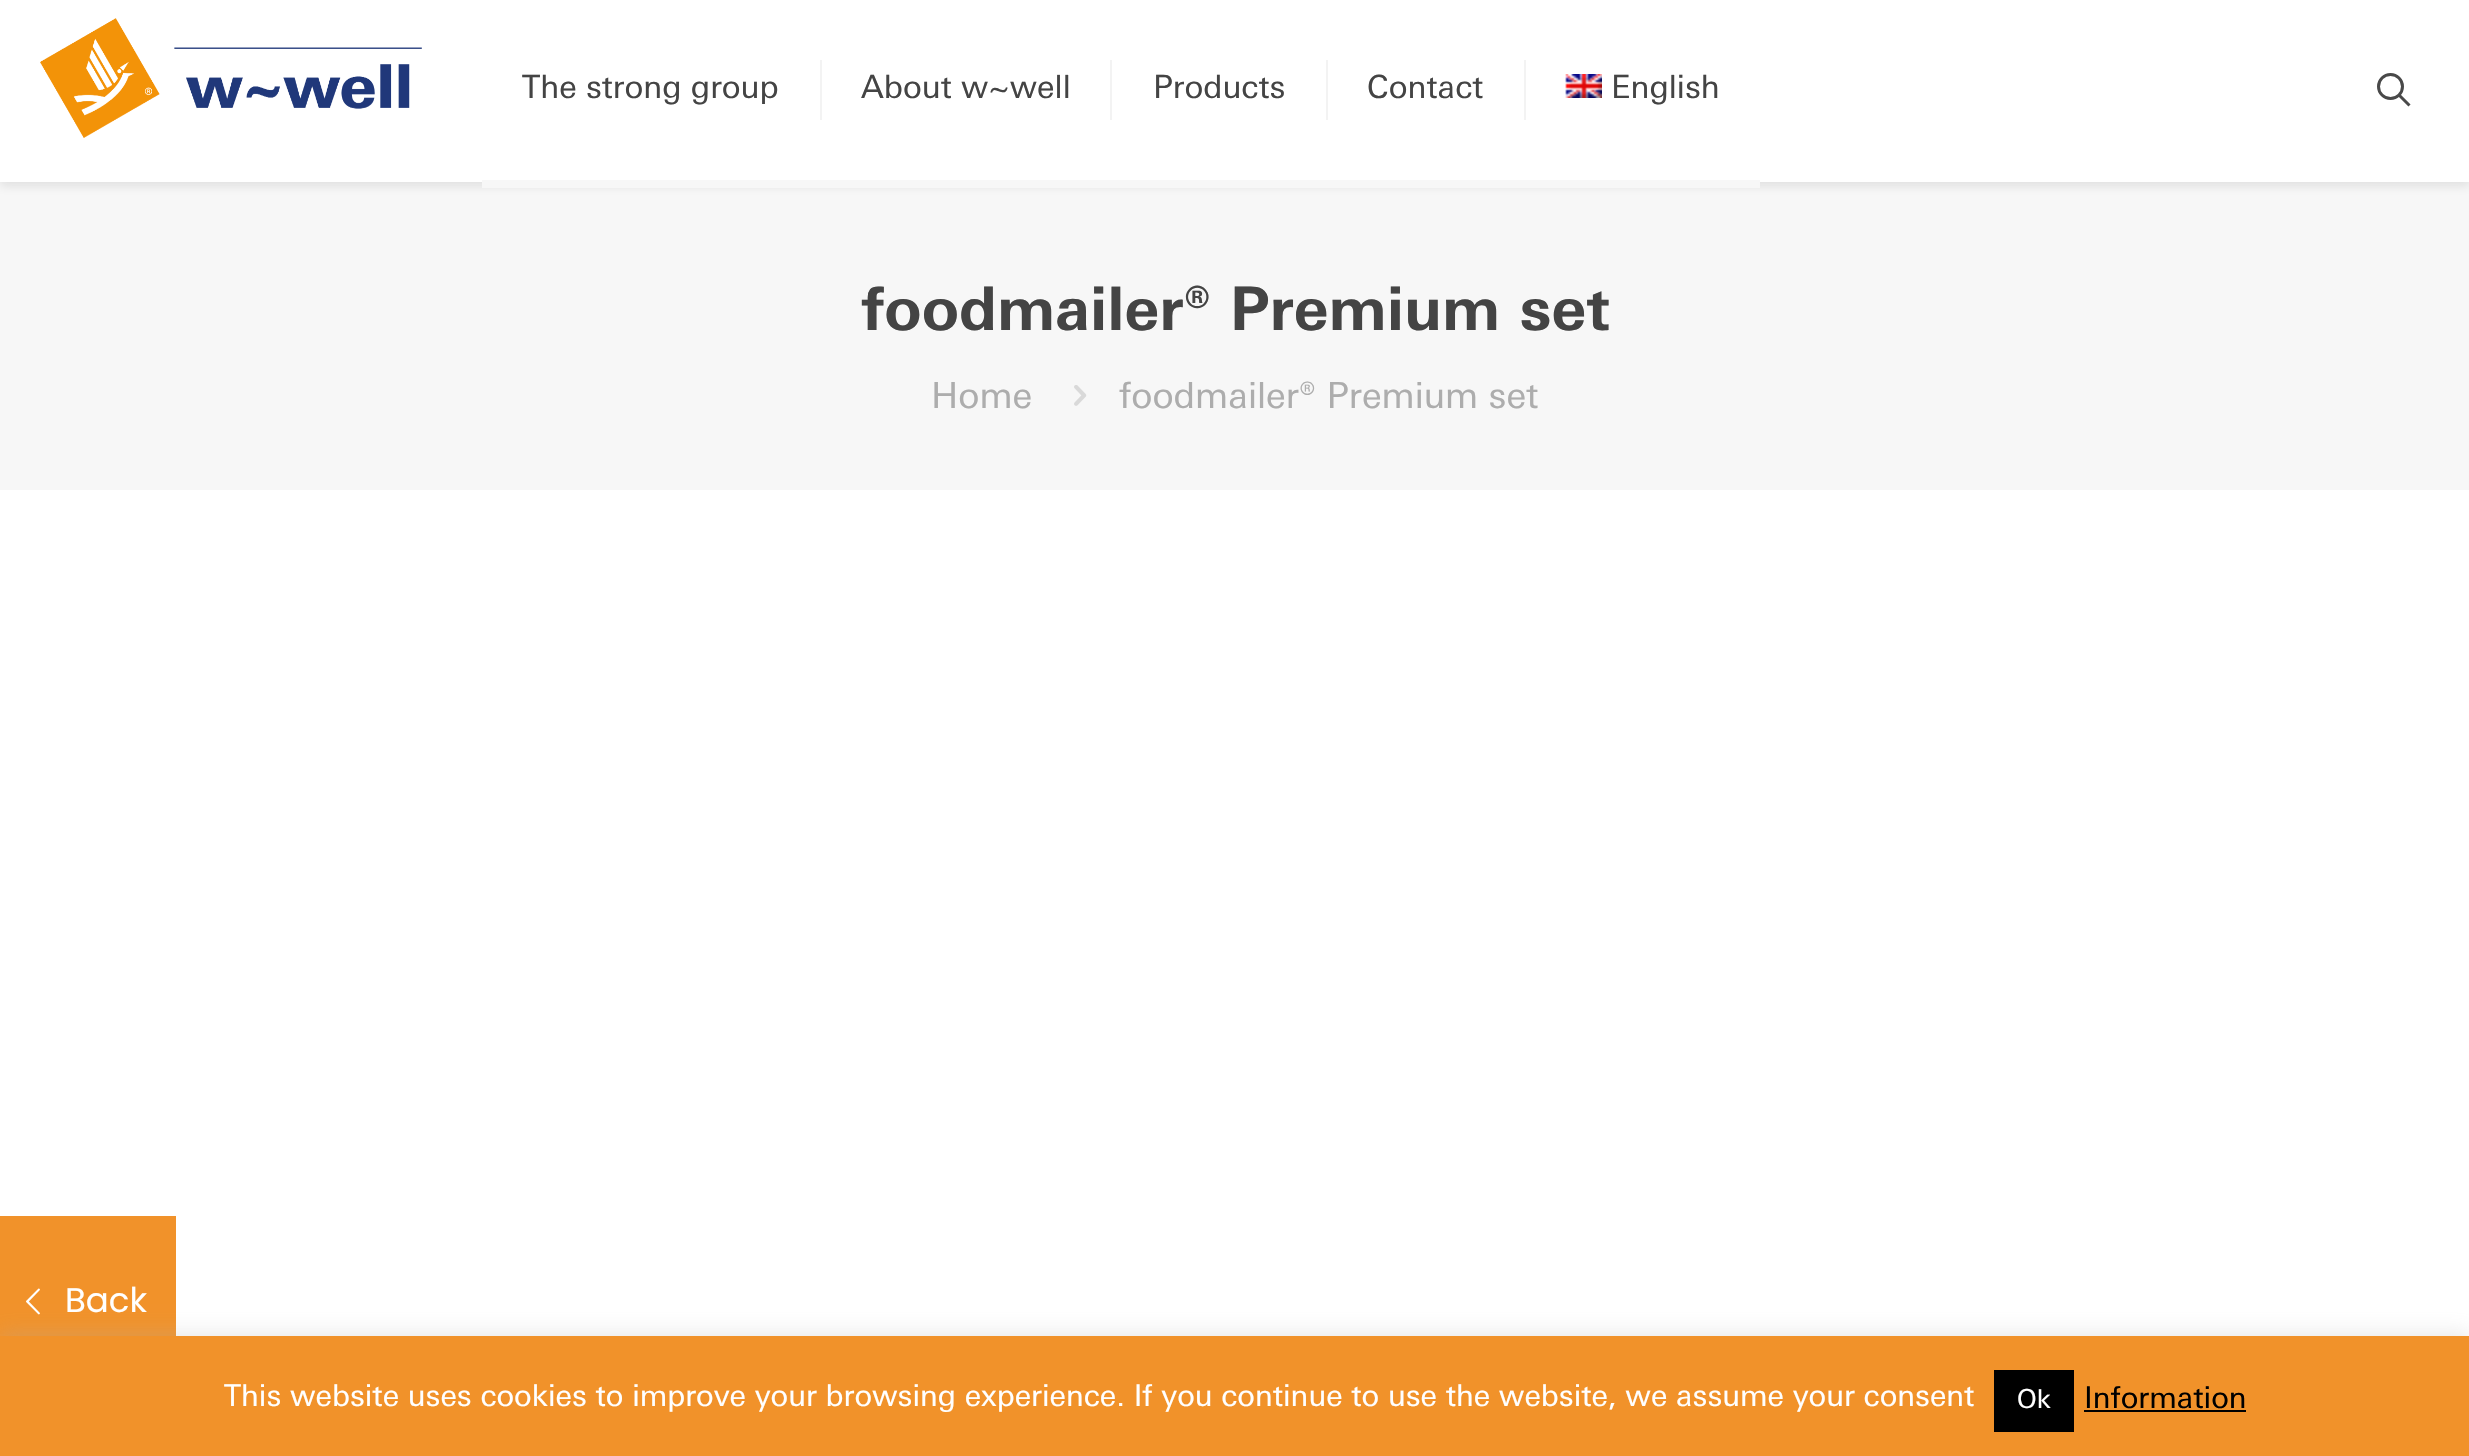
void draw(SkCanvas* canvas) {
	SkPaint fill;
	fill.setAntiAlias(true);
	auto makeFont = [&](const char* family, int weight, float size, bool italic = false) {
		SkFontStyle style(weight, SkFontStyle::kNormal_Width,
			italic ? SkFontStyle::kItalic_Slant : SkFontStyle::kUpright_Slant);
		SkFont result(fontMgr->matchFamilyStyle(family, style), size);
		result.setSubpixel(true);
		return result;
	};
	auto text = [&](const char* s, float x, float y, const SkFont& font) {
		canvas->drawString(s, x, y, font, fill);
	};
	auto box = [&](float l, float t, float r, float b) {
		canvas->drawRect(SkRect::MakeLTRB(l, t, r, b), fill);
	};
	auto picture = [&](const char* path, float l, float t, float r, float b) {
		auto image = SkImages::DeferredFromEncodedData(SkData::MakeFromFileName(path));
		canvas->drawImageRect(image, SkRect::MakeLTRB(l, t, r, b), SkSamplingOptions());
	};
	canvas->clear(0xFFFFFFFF);
	fill.setColor(0xFFF7F7F7);
	box(0, 182, 2469, 490);
	fill.setColor(0x1A070707);
	fill.setMaskFilter(SkMaskFilter::MakeBlur(kNormal_SkBlurStyle, 5));
	canvas->drawRect(SkRect::MakeLTRB(0, 4, 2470, 186), fill);
	fill.setMaskFilter(nullptr);
	fill.setColor(0xFFFFFFFF);
	box(0, 0, 2469, 182);
	picture("image0.png", 40, 18, 422, 138);
	fill.setColor(0xFFF3F3F3);
	box(820, 60, 822, 120);
	fill.setColor(0xFFF7F7F7);
	box(482, 180, 1760, 188);
	fill.setColor(0xFFF3F3F3);
	box(1110, 60, 1112, 120);
	box(1326, 60, 1328, 120);
	box(1524, 60, 1526, 120);
	picture("image1.png", 1565, 74, 1602, 98);
	fill.setStyle(SkPaint::kStroke_Style);
	fill.setStrokeWidth(3);
	fill.setColor(0xFF494949);
	canvas->drawCircle(2390.5f, 86.5f, 12, fill);
	canvas->drawPath(SkPathBuilder().moveTo(2399, 95).lineTo(2409.5f, 105.5f).detach(), fill);
	picture("image2.png", 1074, 385, 1087, 406);
	fill.setStyle(SkPaint::kFill_Style);
	fill.setColor(0xFFF1922A);
	box(0, 1216, 176, 1336);
	picture("image3.png", 26, 1288, 40, 1315);
	fill.setColor(0x4DACABAB);
	fill.setMaskFilter(SkMaskFilter::MakeBlur(kNormal_SkBlurStyle, 10));
	canvas->drawRect(SkRect::MakeLTRB(0, 1334, 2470, 1454), fill);
	fill.setMaskFilter(nullptr);
	fill.setColor(0xFFF1922A);
	box(0, 1336, 2469, 1456);
	fill.setColor(0xFF000000);
	box(1994, 1370, 2074, 1432);
	box(2084, 1410, 2246, 1412);
	auto font1 = makeFont("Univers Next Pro", 400, 32);
	fill.setColor(0xFF444444);
	text("The strong group", 522, 98, font1);
	text("About w~well", 861, 98, font1);
	text("Products", 1153, 98, font1);
	text("Contact", 1367, 98, font1);
	text("English", 1611, 98, font1);
	auto font2 = makeFont("Univers Next Pro", 700, 60);
	text("foodmailer® Premium set", 861, 330, font2);
	auto font3 = makeFont("Univers Next Pro", 400, 36);
	fill.setColor(0xFFADADAD);
	text("Home", 931, 408, font3);
	text("foodmailer® Premium set", 1119, 408, font3);
	auto font4 = makeFont("Poppins", 400, 34);
	fill.setColor(0xFFFFFFFF);
	text("Back", 65, 1312, font4);
	auto font5 = makeFont("Univers Next Pro", 400, 30);
	text("This website uses cookies to improve your browsing experience. If you continue to use the website, we assume your consent", 224, 1406, font5);
	auto font6 = makeFont("Univers Next Pro", 400, 26);
	text("Ok", 2017, 1408, font6);
	fill.setColor(0xFF000000);
	text("Information", 2084, 1408, font5);
}
